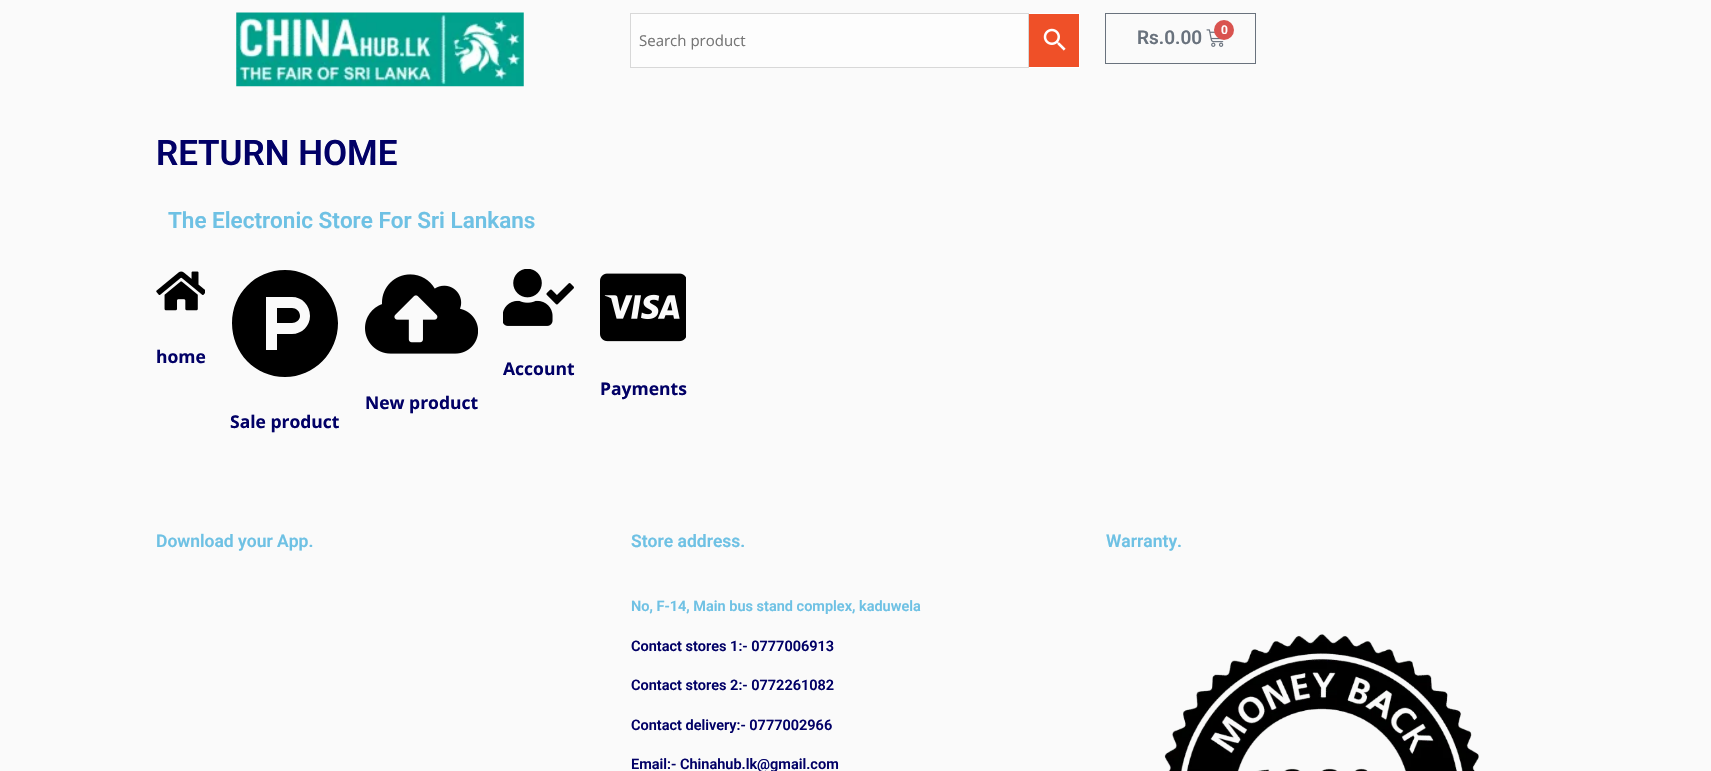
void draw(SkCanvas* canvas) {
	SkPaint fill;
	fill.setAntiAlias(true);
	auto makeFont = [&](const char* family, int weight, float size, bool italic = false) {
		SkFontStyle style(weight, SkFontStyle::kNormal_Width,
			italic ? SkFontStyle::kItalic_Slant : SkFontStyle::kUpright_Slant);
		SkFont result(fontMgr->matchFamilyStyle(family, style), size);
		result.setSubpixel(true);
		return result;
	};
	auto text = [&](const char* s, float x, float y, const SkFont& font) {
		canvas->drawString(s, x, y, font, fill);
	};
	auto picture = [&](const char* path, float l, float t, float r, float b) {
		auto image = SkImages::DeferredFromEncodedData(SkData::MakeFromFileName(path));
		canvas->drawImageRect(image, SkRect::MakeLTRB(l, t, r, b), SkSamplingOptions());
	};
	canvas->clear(0xFFFAFAFA);
	picture("image0.png", 236, 12, 524, 87);
	fill.setColor(0xFFEF5028);
	canvas->drawRect(SkRect::MakeLTRB(1028.5f, 13.5f, 1079.5f, 67.5f), fill);
	fill.setStyle(SkPaint::kStroke_Style);
	fill.setStrokeWidth(1);
	fill.setColor(0xFFFFFFFF);
	canvas->drawRect(SkRect::MakeLTRB(1028.5f, 13.5f, 1079.5f, 67.5f), fill);
	fill.setStyle(SkPaint::kFill_Style);
	fill.setColor(0xFFFDFDFD);
	canvas->drawRect(SkRect::MakeLTRB(630.5f, 13.5f, 1028.5f, 67.5f), fill);
	fill.setStyle(SkPaint::kStroke_Style);
	fill.setColor(0xFFD8D8D8);
	canvas->drawRect(SkRect::MakeLTRB(630.5f, 13.5f, 1028.5f, 67.5f), fill);
	picture("image1.png", 1043, 28, 1066, 51);
	fill.setColor(0xFF69727D);
	canvas->drawRect(SkRect::MakeLTRB(1105.5f, 13.5f, 1255.5f, 63.5f), fill);
	picture("image2.png", 1206, 29, 1224, 47);
	fill.setStyle(SkPaint::kFill_Style);
	fill.setColor(0xFFD9534F);
	canvas->drawCircle(1224, 30, 10, fill);
	picture("image3.png", 156, 271, 205, 311);
	picture("image4.png", 503, 269, 574, 326);
	picture("image5.png", 600, 273, 686, 342);
	picture("image6.png", 365, 274, 478, 354);
	fill.setColor(0xFF000000);
	canvas->drawPath(SkPathBuilder().moveTo(300, 316).cubicTo(300, 320, 296, 323, 292, 323).lineTo(277, 323).lineTo(277, 308).lineTo(292, 308).cubicTo(296, 308, 300, 311, 300, 316).close().moveTo(338, 323).cubicTo(338, 353, 314, 377, 285, 377).cubicTo(255, 377, 232, 353, 232, 323).cubicTo(232, 294, 255, 270, 285, 270).cubicTo(314, 270, 338, 294, 338, 323).close().moveTo(310, 316).cubicTo(310, 305, 302, 297, 292, 297).lineTo(266, 297).lineTo(266, 350).lineTo(277, 350).lineTo(277, 334).lineTo(292, 334).cubicTo(302, 334, 310, 326, 310, 316).close().detach(), fill);
	picture("image7.png", 1164, 634, 1479, 771);
	auto font1 = makeFont("Open Sans", 400, 15);
	fill.setColor(0xFF757575);
	text("Search product", 639, 46, font1);
	auto font2 = makeFont("Roboto", 600, 19);
	fill.setColor(0xFF69727D);
	text("Rs.0.00", 1137, 44, font2);
	auto font3 = makeFont("Roboto", 600, 12);
	fill.setColor(0xFFFFFFFF);
	text("0", 1221, 34, font3);
	auto font4 = makeFont("Roboto", 600, 35);
	fill.setColor(0xFF010066);
	text("RETURN HOME", 156, 165, font4);
	auto font5 = makeFont("Roboto", 600, 22.5f);
	fill.setColor(0xFF6EC1E4);
	text("The Electronic Store For Sri Lankans", 168, 228, font5);
	auto font6 = makeFont("Open Sans", 700, 17.5f);
	fill.setColor(0xFF010066);
	text("home", 156, 363, font6);
	text("Account", 503, 375, font6);
	text("Payments", 600, 395, font6);
	text("New product", 365, 409, font6);
	text("Sale product", 230, 428, font6);
	auto font7 = makeFont("Roboto", 600, 17.5f);
	fill.setColor(0xFF6EC1E4);
	text("Download your App.", 156, 547, font7);
	text("Store address.", 631, 547, font7);
	auto font8 = makeFont("Roboto", 600, 14.5f);
	text("No, F-14, Main bus stand complex, kaduwela", 631, 611, font8);
	fill.setColor(0xFF010066);
	text("Contact stores 1:- 0777006913", 631, 651, font8);
	text("Contact stores 2:- 0772261082", 631, 690, font8);
	text("Contact delivery:- 0777002966", 631, 730, font8);
	text("Email:- Chinahub.lk@gmail.com", 631, 769, font8);
	fill.setColor(0xFF6EC1E4);
	text("Warranty.", 1106, 547, font7);
}
